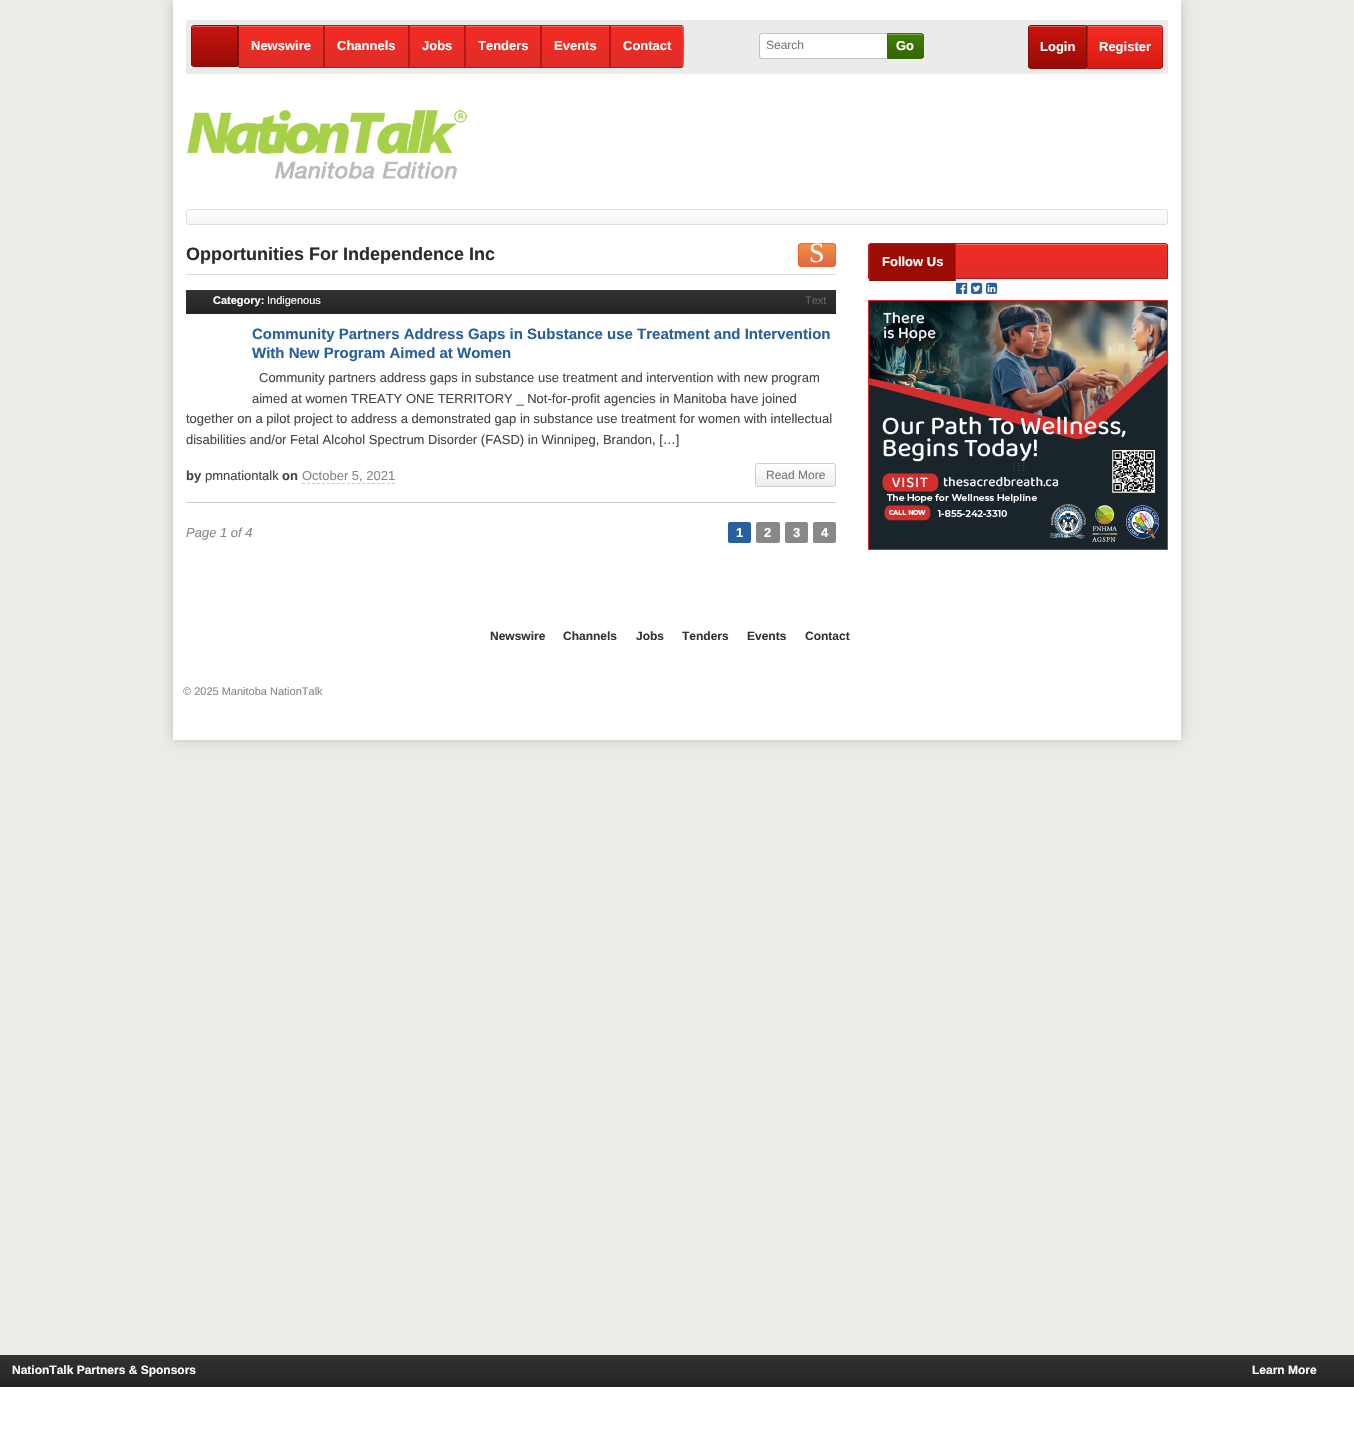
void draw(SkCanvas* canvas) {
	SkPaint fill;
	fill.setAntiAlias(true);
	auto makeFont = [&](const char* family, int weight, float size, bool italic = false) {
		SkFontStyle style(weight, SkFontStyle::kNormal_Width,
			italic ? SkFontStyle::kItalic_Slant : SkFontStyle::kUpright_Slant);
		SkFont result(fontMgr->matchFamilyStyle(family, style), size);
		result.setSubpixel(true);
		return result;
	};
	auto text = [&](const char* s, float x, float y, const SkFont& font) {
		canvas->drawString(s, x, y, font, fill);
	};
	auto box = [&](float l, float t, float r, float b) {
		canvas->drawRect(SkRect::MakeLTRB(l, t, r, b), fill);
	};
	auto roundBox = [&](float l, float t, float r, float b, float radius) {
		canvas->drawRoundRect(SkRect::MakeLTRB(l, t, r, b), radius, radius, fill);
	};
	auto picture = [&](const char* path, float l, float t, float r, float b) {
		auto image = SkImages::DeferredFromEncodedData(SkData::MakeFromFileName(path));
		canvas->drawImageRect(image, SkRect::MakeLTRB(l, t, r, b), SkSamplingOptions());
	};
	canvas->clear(0xFFEEECE7);
	fill.setColor(0x33000000);
	fill.setMaskFilter(SkMaskFilter::MakeBlur(kNormal_SkBlurStyle, 6));
	canvas->drawRect(SkRect::MakeLTRB(173, 0, 1181, 740), fill);
	fill.setMaskFilter(nullptr);
	fill.setColor(0xFFFFFFFF);
	box(173, 0, 1181, 740);
	fill.setColor(0xFFEBEBEB);
	roundBox(186, 20, 1168, 74, 3);
	canvas->save();
	canvas->clipPath(SkPathBuilder().moveTo(194, 25).lineTo(239, 25).lineTo(239, 67).lineTo(194, 67).cubicTo(192.5f, 67, 191, 65.5f, 191, 64).lineTo(191, 28).cubicTo(191, 26.5f, 192.5f, 25, 194, 25).close().detach(), true);
	{
		const SkColor colors[] = {0xFFC9140D, 0xFF960B06};
		const float stops[] = {0, 1};
		const SkPoint ends[] = {{215, 26}, {215, 66}};
		fill.setShader(SkGradientShader::MakeLinear(ends, colors, stops, 2, SkTileMode::kClamp));
		fill.setAlpha(255);
	}
	box(191, 26, 237, 66);
	canvas->restore();
	fill.setShader(nullptr);
	fill.setColor(0xFFD85B56);
	canvas->drawPath(SkPathBuilder().moveTo(194, 27).lineTo(238, 27).lineTo(238, 26).lineTo(194, 26).cubicTo(193, 26, 192, 27, 192, 28).lineTo(192, 29).cubicTo(192, 28, 193, 27, 194, 27).close().detach(), fill);
	fill.setStyle(SkPaint::kStroke_Style);
	fill.setStrokeWidth(1);
	fill.setColor(0xFF7F120D);
	canvas->drawPath(SkPathBuilder().moveTo(194, 25.5f).lineTo(238.5f, 25.5f).lineTo(238.5f, 66.5f).lineTo(194, 66.5f).cubicTo(192.5f, 66.5f, 191.5f, 65.5f, 191.5f, 64).lineTo(191.5f, 28).cubicTo(191.5f, 26.5f, 192.5f, 25.5f, 194, 25.5f).close().detach(), fill);
	fill.setStyle(SkPaint::kFill_Style);
	box(237, 26, 238, 66);
	{
		const SkColor colors[] = {0xFFF42B23, 0xFFDF2D29};
		const float stops[] = {0, 1};
		const SkPoint ends[] = {{281, 26}, {281, 67}};
		fill.setShader(SkGradientShader::MakeLinear(ends, colors, stops, 2, SkTileMode::kClamp));
		fill.setAlpha(255);
	}
	box(239, 27, 323, 67);
	fill.setShader(nullptr);
	fill.setColor(0xFFF76B65);
	box(239, 26, 323, 27);
	fill.setColor(0xFFB01A19);
	box(239, 25, 324, 26);
	box(323, 25, 324, 68);
	box(239, 67, 324, 68);
	{
		const SkColor colors[] = {0xFFF42B23, 0xFFDF2D29};
		const float stops[] = {0, 1};
		const SkPoint ends[] = {{367, 26}, {367, 67}};
		fill.setShader(SkGradientShader::MakeLinear(ends, colors, stops, 2, SkTileMode::kClamp));
		fill.setAlpha(255);
	}
	box(325, 27, 408, 67);
	fill.setShader(nullptr);
	fill.setColor(0xFFF76B65);
	box(325, 26, 408, 27);
	fill.setStyle(SkPaint::kStroke_Style);
	fill.setColor(0xFFB01A19);
	canvas->drawRect(SkRect::MakeLTRB(324.5f, 25.5f, 408.5f, 67.5f), fill);
	fill.setStyle(SkPaint::kFill_Style);
	{
		const SkColor colors[] = {0xFFF42B23, 0xFFDF2D29};
		const float stops[] = {0, 1};
		const SkPoint ends[] = {{437, 26}, {437, 67}};
		fill.setShader(SkGradientShader::MakeLinear(ends, colors, stops, 2, SkTileMode::kClamp));
		fill.setAlpha(255);
	}
	box(410, 27, 464, 67);
	fill.setShader(nullptr);
	fill.setColor(0xFFF76B65);
	box(410, 26, 464, 27);
	fill.setStyle(SkPaint::kStroke_Style);
	fill.setColor(0xFFB01A19);
	canvas->drawRect(SkRect::MakeLTRB(409.5f, 25.5f, 464.5f, 67.5f), fill);
	fill.setStyle(SkPaint::kFill_Style);
	{
		const SkColor colors[] = {0xFFF42B23, 0xFFDF2D29};
		const float stops[] = {0, 1};
		const SkPoint ends[] = {{503, 26}, {503, 67}};
		fill.setShader(SkGradientShader::MakeLinear(ends, colors, stops, 2, SkTileMode::kClamp));
		fill.setAlpha(255);
	}
	box(466, 27, 540, 67);
	fill.setShader(nullptr);
	fill.setColor(0xFFF76B65);
	box(466, 26, 540, 27);
	fill.setStyle(SkPaint::kStroke_Style);
	fill.setColor(0xFFB01A19);
	canvas->drawRect(SkRect::MakeLTRB(465.5f, 25.5f, 540.5f, 67.5f), fill);
	fill.setStyle(SkPaint::kFill_Style);
	{
		const SkColor colors[] = {0xFFF42B23, 0xFFDF2D29};
		const float stops[] = {0, 1};
		const SkPoint ends[] = {{576, 26}, {576, 67}};
		fill.setShader(SkGradientShader::MakeLinear(ends, colors, stops, 2, SkTileMode::kClamp));
		fill.setAlpha(255);
	}
	box(542, 27, 609, 67);
	fill.setShader(nullptr);
	fill.setColor(0xFFF76B65);
	box(542, 26, 609, 27);
	fill.setStyle(SkPaint::kStroke_Style);
	fill.setColor(0xFFB01A19);
	canvas->drawRect(SkRect::MakeLTRB(541.5f, 25.5f, 609.5f, 67.5f), fill);
	canvas->save();
	canvas->clipPath(SkPathBuilder().moveTo(610, 25).lineTo(681, 25).cubicTo(682.5f, 25, 684, 26.5f, 684, 28).lineTo(684, 65).cubicTo(684, 66.5f, 682.5f, 68, 681, 68).lineTo(610, 68).close().detach(), true);
	fill.setStyle(SkPaint::kFill_Style);
	{
		const SkColor colors[] = {0xFFF42B23, 0xFFDF2D29};
		const float stops[] = {0, 1};
		const SkPoint ends[] = {{647, -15}, {647, 26}};
		fill.setShader(SkGradientShader::MakeLinear(ends, colors, stops, 2, SkTileMode::kClamp));
		fill.setAlpha(255);
	}
	box(610, 25, 684, 26);
	{
		const SkColor colors[] = {0xFFF42B23, 0xFFDF2D29};
		const float stops[] = {0, 1};
		const SkPoint ends[] = {{647, 26}, {647, 67}};
		fill.setShader(SkGradientShader::MakeLinear(ends, colors, stops, 2, SkTileMode::kClamp));
		fill.setAlpha(255);
	}
	box(611, 26, 684, 67);
	{
		const SkColor colors[] = {0xFFF42B23, 0xFFDF2D29};
		const float stops[] = {0, 1};
		const SkPoint ends[] = {{647, 67}, {647, 108}};
		fill.setShader(SkGradientShader::MakeLinear(ends, colors, stops, 2, SkTileMode::kClamp));
		fill.setAlpha(255);
	}
	box(610, 67, 684, 68);
	canvas->restore();
	fill.setShader(nullptr);
	fill.setColor(0xFFF76B65);
	canvas->drawPath(SkPathBuilder().moveTo(611, 27).lineTo(681, 27).cubicTo(682, 27, 683, 28, 683, 29).lineTo(683, 28).cubicTo(683, 27, 682, 26, 681, 26).lineTo(611, 26).close().detach(), fill);
	fill.setColor(0xFFB01A19);
	canvas->drawPath(SkPathBuilder().moveTo(610, 25).lineTo(611, 26).lineTo(681, 26).lineTo(682, 27).lineTo(683, 26).lineTo(681, 25).close().detach(), fill);
	fill.setColor(0xFF86A24E);
	canvas->drawPath(SkPathBuilder().moveTo(684, 65).cubicTo(684, 60, 685, 28, 683, 26).lineTo(682, 27).cubicTo(684, 28, 684, 65, 682, 66).lineTo(683, 67).close().detach(), fill);
	fill.setColor(0xFFB01A19);
	canvas->drawPath(SkPathBuilder().moveTo(681, 68).lineTo(683, 67).lineTo(682, 66).lineTo(681, 67).lineTo(611, 67).lineTo(610, 68).close().detach(), fill);
	canvas->drawPath(SkPathBuilder().moveTo(610, 25).lineTo(610, 68).lineTo(611, 67).lineTo(611, 26).close().detach(), fill);
	fill.setColor(0xFFFFFFFF);
	canvas->drawPath(SkPathBuilder().moveTo(762, 33).lineTo(887, 33).lineTo(887, 59).lineTo(762, 59).cubicTo(760.5f, 59, 759, 57.5f, 759, 56).lineTo(759, 36).cubicTo(759, 34.5f, 760.5f, 33, 762, 33).close().detach(), fill);
	fill.setColor(0xFFC3C3C3);
	canvas->drawPath(SkPathBuilder(SkPathFillType::kEvenOdd).moveTo(762, 33).lineTo(887, 33).lineTo(887, 59).lineTo(762, 59).cubicTo(760, 59, 759, 58, 759, 56).lineTo(759, 36).cubicTo(759, 34, 760, 33, 762, 33).close().moveTo(762, 34).lineTo(887, 34).lineTo(887, 58).lineTo(762, 58).cubicTo(761, 58, 760, 57, 760, 56).lineTo(760, 36).cubicTo(760, 35, 761, 34, 762, 34).close().detach(), fill);
	canvas->save();
	canvas->clipPath(SkPathBuilder().moveTo(887, 33).lineTo(921, 33).cubicTo(922.5f, 33, 924, 34.5f, 924, 36).lineTo(924, 56).cubicTo(924, 57.5f, 922.5f, 59, 921, 59).lineTo(887, 59).close().detach(), true);
	{
		const SkColor colors[] = {0xFF3E8004, 0xFF366401};
		const float stops[] = {0, 1};
		const SkPoint ends[] = {{906, 34}, {906, 58}};
		fill.setShader(SkGradientShader::MakeLinear(ends, colors, stops, 2, SkTileMode::kClamp));
		fill.setAlpha(255);
	}
	box(888, 34, 924, 58);
	canvas->restore();
	fill.setShader(nullptr);
	fill.setColor(0xFF78A54F);
	canvas->drawPath(SkPathBuilder().moveTo(888, 35).lineTo(916, 35).cubicTo(920.5f, 35, 922.5f, 35, 923, 36.5f).lineTo(923, 36).cubicTo(923, 35, 922, 34, 921, 34).lineTo(888, 34).close().detach(), fill);
	fill.setStyle(SkPaint::kStroke_Style);
	fill.setColor(0xFF396E02);
	canvas->drawPath(SkPathBuilder().moveTo(887.5f, 33.5f).lineTo(921, 33.5f).cubicTo(922.5f, 33.5f, 923.5f, 34.5f, 923.5f, 36).lineTo(923.5f, 56).cubicTo(923.5f, 57.5f, 922.5f, 58.5f, 921, 58.5f).lineTo(887.5f, 58.5f).close().detach(), fill);
	canvas->save();
	canvas->clipPath(SkPathBuilder().moveTo(1031, 25).lineTo(1087, 25).lineTo(1087, 69).lineTo(1031, 69).cubicTo(1029.5f, 69, 1028, 67.5f, 1028, 66).lineTo(1028, 28).cubicTo(1028, 26.5f, 1029.5f, 25, 1031, 25).close().detach(), true);
	fill.setStyle(SkPaint::kFill_Style);
	{
		const SkColor colors[] = {0xFFC9140D, 0xFF960B06};
		const float stops[] = {0, 1};
		const SkPoint ends[] = {{1058, 26}, {1058, 68}};
		fill.setShader(SkGradientShader::MakeLinear(ends, colors, stops, 2, SkTileMode::kClamp));
		fill.setAlpha(255);
	}
	box(1028, 26, 1086, 68);
	canvas->restore();
	fill.setShader(nullptr);
	fill.setColor(0xFFD85B56);
	canvas->drawPath(SkPathBuilder().moveTo(1031, 27).lineTo(1086, 27).lineTo(1086, 26).lineTo(1031, 26).cubicTo(1030, 26, 1029, 27, 1029, 28).lineTo(1029, 29).cubicTo(1029, 28, 1030, 27, 1031, 27).close().detach(), fill);
	fill.setStyle(SkPaint::kStroke_Style);
	fill.setColor(0xFF7F120D);
	canvas->drawPath(SkPathBuilder().moveTo(1031, 25.5f).lineTo(1086.5f, 25.5f).lineTo(1086.5f, 68.5f).lineTo(1031, 68.5f).cubicTo(1029.5f, 68.5f, 1028.5f, 67.5f, 1028.5f, 66).lineTo(1028.5f, 28).cubicTo(1028.5f, 26.5f, 1029.5f, 25.5f, 1031, 25.5f).close().detach(), fill);
	canvas->save();
	canvas->clipPath(SkPathBuilder().moveTo(1087, 25).lineTo(1160, 25).cubicTo(1161.5f, 25, 1163, 26.5f, 1163, 28).lineTo(1163, 66).cubicTo(1163, 67.5f, 1161.5f, 69, 1160, 69).lineTo(1087, 69).close().detach(), true);
	fill.setStyle(SkPaint::kFill_Style);
	{
		const SkColor colors[] = {0xFFF32D24, 0xFFD81911};
		const float stops[] = {0, 1};
		const SkPoint ends[] = {{1125, 26}, {1125, 68}};
		fill.setShader(SkGradientShader::MakeLinear(ends, colors, stops, 2, SkTileMode::kClamp));
		fill.setAlpha(255);
	}
	box(1088, 26, 1163, 68);
	canvas->restore();
	fill.setShader(nullptr);
	fill.setColor(0xFFF76C66);
	canvas->drawPath(SkPathBuilder().moveTo(1088, 27).lineTo(1160, 27).cubicTo(1161, 27, 1162, 28, 1162, 29).lineTo(1162, 28).cubicTo(1162, 27, 1161, 26, 1160, 26).lineTo(1088, 26).close().detach(), fill);
	fill.setStyle(SkPaint::kStroke_Style);
	fill.setColor(0xFFB01A19);
	canvas->drawPath(SkPathBuilder().moveTo(1087.5f, 25.5f).lineTo(1160, 25.5f).cubicTo(1161.5f, 25.5f, 1162.5f, 26.5f, 1162.5f, 28).lineTo(1162.5f, 66).cubicTo(1162.5f, 67.5f, 1161.5f, 68.5f, 1160, 68.5f).lineTo(1087.5f, 68.5f).close().detach(), fill);
	picture("image0.png", 187, 110, 467, 179);
	canvas->save();
	canvas->clipPath(SkPathBuilder().moveTo(189, 209).lineTo(1165, 209).cubicTo(1166.5f, 209, 1168, 210.5f, 1168, 212).lineTo(1168, 222).cubicTo(1168, 223.5f, 1166.5f, 225, 1165, 225).lineTo(189, 225).cubicTo(187.5f, 225, 186, 223.5f, 186, 222).lineTo(186, 212).cubicTo(186, 210.5f, 187.5f, 209, 189, 209).close().detach(), true);
	fill.setStyle(SkPaint::kFill_Style);
	{
		const SkColor colors[] = {0xFFFFFFFF, 0xFFF5F5F5};
		const float stops[] = {0, 1};
		const SkPoint ends[] = {{677, 210}, {677, 224}};
		fill.setShader(SkGradientShader::MakeLinear(ends, colors, stops, 2, SkTileMode::kClamp));
		fill.setAlpha(255);
	}
	box(186, 210, 1168, 224);
	canvas->restore();
	fill.setStyle(SkPaint::kStroke_Style);
	fill.setShader(nullptr);
	fill.setColor(0xFFDDDDDD);
	canvas->drawRoundRect(SkRect::MakeLTRB(186.5f, 209.5f, 1167.5f, 224.5f), 2.5f, 2.5f, fill);
	fill.setStyle(SkPaint::kFill_Style);
	box(186, 274, 836, 275);
	canvas->save();
	canvas->clipPath(SkPathBuilder().moveTo(801, 243).lineTo(833, 243).cubicTo(834.5f, 243, 836, 244.5f, 836, 246).lineTo(836, 264).cubicTo(836, 265.5f, 834.5f, 267, 833, 267).lineTo(801, 267).cubicTo(799.5f, 267, 798, 265.5f, 798, 264).lineTo(798, 246).cubicTo(798, 244.5f, 799.5f, 243, 801, 243).close().detach(), true);
	{
		const SkColor colors[] = {0xFFF09042, 0xFFE36642};
		const float stops[] = {0, 1};
		const SkPoint ends[] = {{817, 244}, {817, 266}};
		fill.setShader(SkGradientShader::MakeLinear(ends, colors, stops, 2, SkTileMode::kClamp));
		fill.setAlpha(255);
	}
	box(798, 244, 836, 266);
	canvas->restore();
	fill.setStyle(SkPaint::kStroke_Style);
	fill.setShader(nullptr);
	fill.setColor(0xFFEA6635);
	canvas->drawRoundRect(SkRect::MakeLTRB(798.5f, 243.5f, 835.5f, 266.5f), 2.5f, 2.5f, fill);
	fill.setStyle(SkPaint::kFill_Style);
	fill.setColor(0xFFCCCCCC);
	box(186, 502, 836, 503);
	{
		const SkColor colors[] = {0xFF323232, 0xFF242424};
		const float stops[] = {0, 1};
		const SkPoint ends[] = {{511, 290}, {511, 314}};
		fill.setShader(SkGradientShader::MakeLinear(ends, colors, stops, 2, SkTileMode::kClamp));
		fill.setAlpha(255);
	}
	box(186, 290, 836, 314);
	fill.setStyle(SkPaint::kStroke_Style);
	fill.setShader(nullptr);
	fill.setColor(0xFFCCCCCC);
	fill.setPathEffect(SkDashPathEffect::Make({{3, 2}}, 0));
	canvas->drawPath(SkPathBuilder().moveTo(302, 483.5f).lineTo(395, 483.5f).detach(), fill);
	fill.setPathEffect(nullptr);
	canvas->save();
	canvas->clipPath(SkPathBuilder().moveTo(758, 463).lineTo(833, 463).cubicTo(834.5f, 463, 836, 464.5f, 836, 466).lineTo(836, 484).cubicTo(836, 485.5f, 834.5f, 487, 833, 487).lineTo(758, 487).cubicTo(756.5f, 487, 755, 485.5f, 755, 484).lineTo(755, 466).cubicTo(755, 464.5f, 756.5f, 463, 758, 463).close().detach(), true);
	fill.setStyle(SkPaint::kFill_Style);
	{
		const SkColor colors[] = {0xFFFFFFFF, 0xFFEDEDED};
		const float stops[] = {0, 1};
		const SkPoint ends[] = {{796, 464}, {796, 486}};
		fill.setShader(SkGradientShader::MakeLinear(ends, colors, stops, 2, SkTileMode::kClamp));
		fill.setAlpha(255);
	}
	box(755, 464, 836, 486);
	canvas->restore();
	fill.setStyle(SkPaint::kStroke_Style);
	fill.setShader(nullptr);
	fill.setColor(0xFFCCCCCC);
	canvas->drawRoundRect(SkRect::MakeLTRB(755.5f, 463.5f, 835.5f, 486.5f), 2.5f, 2.5f, fill);
	fill.setStyle(SkPaint::kFill_Style);
	fill.setColor(0xFF285F9E);
	roundBox(728, 522, 751, 543, 2);
	fill.setColor(0xFF888888);
	roundBox(756, 522, 780, 543, 2);
	roundBox(785, 522, 808, 543, 2);
	roundBox(813, 522, 836, 543, 2);
	canvas->save();
	canvas->clipPath(SkPathBuilder().moveTo(871, 243).lineTo(1165, 243).cubicTo(1166.5f, 243, 1168, 244.5f, 1168, 246).lineTo(1168, 279).lineTo(868, 279).lineTo(868, 246).cubicTo(868, 244.5f, 869.5f, 243, 871, 243).close().detach(), true);
	{
		const SkColor colors[] = {0xFFF42B23, 0xFFDF2D29};
		const float stops[] = {0, 1};
		const SkPoint ends[] = {{1018, 244}, {1018, 278}};
		fill.setShader(SkGradientShader::MakeLinear(ends, colors, stops, 2, SkTileMode::kClamp));
		fill.setAlpha(255);
	}
	box(868, 244, 1168, 278);
	canvas->restore();
	fill.setShader(nullptr);
	fill.setColor(0xFFF76B65);
	canvas->drawPath(SkPathBuilder().moveTo(871, 245).lineTo(1165, 245).cubicTo(1166, 245, 1167, 246, 1167, 247).cubicTo(1167, 246, 1167, 244, 1165, 244).lineTo(870, 244).lineTo(869, 247).cubicTo(869, 246, 870, 245, 871, 245).close().detach(), fill);
	fill.setStyle(SkPaint::kStroke_Style);
	fill.setColor(0xFFB01A19);
	canvas->drawPath(SkPathBuilder().moveTo(871, 243.5f).lineTo(1165, 243.5f).cubicTo(1166.5f, 243.5f, 1167.5f, 244.5f, 1167.5f, 246).lineTo(1167.5f, 278.5f).lineTo(868.5f, 278.5f).lineTo(868.5f, 246).cubicTo(868.5f, 244.5f, 869.5f, 243.5f, 871, 243.5f).close().detach(), fill);
	fill.setStyle(SkPaint::kFill_Style);
	fill.setColor(0xFF9B0C06);
	box(870, 244, 955, 281);
	fill.setColor(0xFFB51A16);
	box(955, 244, 956, 281);
	fill.setColor(0xFFC11A14);
	box(869, 244, 870, 281);
	picture("image1.png", 956, 282, 968, 294);
	picture("image2.png", 971, 282, 983, 294);
	picture("image3.png", 986, 282, 998, 294);
	picture("image4.png", 868, 300, 1168, 550);
	{
		const SkColor colors[] = {0xFF323232, 0xFF242424};
		const float stops[] = {0, 1};
		const SkPoint ends[] = {{689, 1355}, {689, 1387}};
		fill.setShader(SkGradientShader::MakeLinear(ends, colors, stops, 2, SkTileMode::kClamp));
		fill.setAlpha(255);
	}
	box(0, 1355, 1354, 1387);
	fill.setShader(nullptr);
	fill.setColor(0x33000000);
	fill.setMaskFilter(SkMaskFilter::MakeBlur(kNormal_SkBlurStyle, 5));
	canvas->drawRect(SkRect::MakeLTRB(0, 1386, 1354, 1446), fill);
	fill.setMaskFilter(nullptr);
	fill.setColor(0xFFFFFFFF);
	box(0, 1387, 1354, 1447);
	auto font1 = makeFont("Liberation Sans", 700, 13);
	text("Newswire", 251, 50, font1);
	text("Channels", 337, 50, font1);
	text("Jobs", 422, 50, font1);
	text("Tenders", 478, 50, font1);
	text("Events", 554, 50, font1);
	text("Contact", 623, 50, font1);
	auto font2 = makeFont("Liberation Sans", 400, 12);
	fill.setColor(0xFF777777);
	text("Search", 766, 49, font2);
	fill.setColor(0xFFFFFFFF);
	text("Go", 896, 50, font1);
	text("Login", 1040, 51, font1);
	text("Register", 1099, 51, font1);
	auto font3 = makeFont("Liberation Sans", 700, 18);
	fill.setColor(0xFF2B2B2B);
	text("Opportunities For Independence Inc", 186, 260, font3);
	auto font4 = makeFont("Liberation Serif", 400, 28);
	fill.setColor(0xFFFFFFFF);
	text("S", 809, 262, font4);
	auto font5 = makeFont("Liberation Sans", 700, 11);
	text("Category:", 213, 304, font5);
	auto font6 = makeFont("Liberation Sans", 400, 11);
	text("Indigenous", 267, 304, font6);
	fill.setColor(0xFF666666);
	text("Text", 805, 304, font6);
	auto font7 = makeFont("Liberation Sans", 700, 15);
	fill.setColor(0xFF285F9E);
	text("Community Partners Address Gaps in Substance use Treatment and Intervention", 252, 339, font7);
	text("With New Program Aimed at Women", 252, 358, font7);
	auto font8 = makeFont("Liberation Sans", 400, 13);
	fill.setColor(0xFF444444);
	text("Community partners address gaps in substance use treatment and intervention with new program", 259, 382, font8);
	text("aimed at women TREATY ONE TERRITORY _ Not-for-profit agencies in Manitoba have joined", 252, 403, font8);
	text("together on a pilot project to address a demonstrated gap in substance use treatment for women with intellectual", 186, 423, font8);
	text("disabilities and/or Fetal Alcohol Spectrum Disorder (FASD) in Winnipeg, Brandon, […]", 186, 444, font8);
	text("by", 186, 480, font1);
	text("pmnationtalk", 205, 480, font8);
	text("on", 282, 480, font1);
	fill.setColor(0xFF888888);
	text("October 5, 2021", 302, 480, font8);
	fill.setColor(0xFF777777);
	text("Read More", 766, 479, font2);
	auto font9 = makeFont("Liberation Sans", 400, 13, true);
	fill.setColor(0xFF888888);
	text("Page 1 of 4", 186, 537, font9);
	fill.setColor(0xFFFFFFFF);
	text("1", 736, 537, font1);
	text("2", 764, 537, font1);
	text("3", 793, 537, font1);
	text("4", 821, 537, font1);
	text("Follow Us", 882, 266, font1);
	auto font10 = makeFont("Liberation Sans", 700, 12);
	fill.setColor(0xFF333333);
	text("Newswire", 490, 640, font10);
	text("Channels", 563, 640, font10);
	text("Jobs", 636, 640, font10);
	text("Tenders", 682, 640, font10);
	text("Events", 747, 640, font10);
	text("Contact", 805, 640, font10);
	fill.setColor(0xFF888888);
	text("© 2025 Manitoba NationTalk", 183, 695, font6);
	fill.setColor(0xFFFFFFFF);
	text("NationTalk Partners & Sponsors", 12, 1374, font10);
	text("Learn More", 1252, 1374, font10);
}
